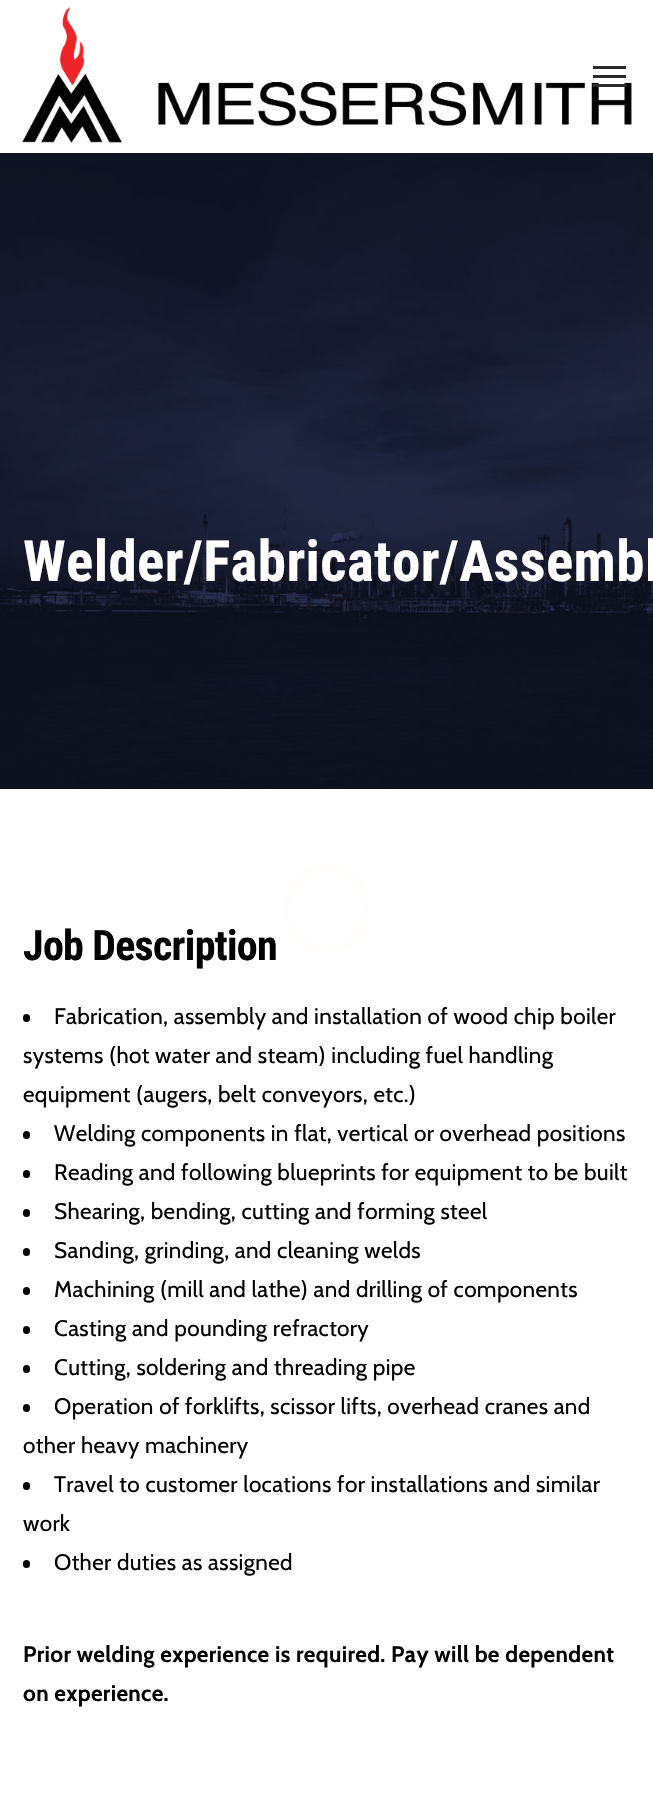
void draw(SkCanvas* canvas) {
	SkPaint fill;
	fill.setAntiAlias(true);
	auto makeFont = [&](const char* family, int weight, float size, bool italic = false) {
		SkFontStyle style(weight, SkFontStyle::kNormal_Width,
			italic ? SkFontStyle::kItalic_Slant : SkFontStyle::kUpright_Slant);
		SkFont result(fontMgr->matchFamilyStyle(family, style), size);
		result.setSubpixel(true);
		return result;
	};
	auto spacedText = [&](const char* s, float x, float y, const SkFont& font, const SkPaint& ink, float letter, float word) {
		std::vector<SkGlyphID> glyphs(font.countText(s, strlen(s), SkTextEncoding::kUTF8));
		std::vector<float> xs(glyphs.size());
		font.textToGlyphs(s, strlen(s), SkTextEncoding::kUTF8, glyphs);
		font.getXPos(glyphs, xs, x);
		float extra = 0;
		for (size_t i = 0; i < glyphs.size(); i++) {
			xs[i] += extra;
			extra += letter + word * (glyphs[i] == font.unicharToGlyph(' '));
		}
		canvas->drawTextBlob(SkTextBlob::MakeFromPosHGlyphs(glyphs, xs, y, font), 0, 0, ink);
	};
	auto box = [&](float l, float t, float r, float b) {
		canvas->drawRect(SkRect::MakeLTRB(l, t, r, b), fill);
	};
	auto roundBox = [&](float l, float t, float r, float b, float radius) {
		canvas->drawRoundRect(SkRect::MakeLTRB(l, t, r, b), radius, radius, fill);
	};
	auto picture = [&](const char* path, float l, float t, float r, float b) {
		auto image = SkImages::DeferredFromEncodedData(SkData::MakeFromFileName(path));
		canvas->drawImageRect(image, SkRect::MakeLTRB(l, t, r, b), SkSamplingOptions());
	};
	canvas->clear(0xFFFFFFFF);
	picture("image0.png", 22, 7, 632, 143);
	fill.setColor(0xFF2A2A2A);
	box(593, 66, 626, 69);
	box(593, 75, 626, 78);
	box(593, 84, 626, 87);
	picture("image1.png", 0, 153, 653, 789);
	canvas->save();
	canvas->clipRect(SkRect::MakeLTRB(282, 864, 327, 954));
	fill.setColor(0xFFFFFEFC);
	canvas->drawPath(SkPathBuilder(SkPathFillType::kEvenOdd).moveTo(335, 865).lineTo(319, 953).cubicTo(295, 949, 278, 926, 283, 901).cubicTo(287, 877, 310, 860, 335, 865).close().moveTo(333, 874).lineTo(321, 944).cubicTo(301, 941, 288, 922, 292, 903).cubicTo(295, 883, 314, 870, 333, 874).close().detach(), fill);
	canvas->restore();
	canvas->drawPath(SkPathBuilder().moveTo(320.5f, 944.5f).cubicTo(326.5f, 945.5f, 325, 954.5f, 319, 953.5f).cubicTo(313.5f, 952.5f, 315, 943.5f, 320.5f, 944.5f).close().detach(), fill);
	canvas->save();
	canvas->clipRect(SkRect::MakeLTRB(327, 864, 372, 954));
	canvas->drawPath(SkPathBuilder(SkPathFillType::kEvenOdd).moveTo(319, 865).cubicTo(344, 860, 367, 877, 371, 901).cubicTo(376, 926, 359, 949, 335, 953).close().moveTo(321, 874).cubicTo(340, 870, 359, 883, 362, 903).cubicTo(366, 922, 353, 941, 333, 944).close().detach(), fill);
	canvas->restore();
	canvas->drawPath(SkPathBuilder().moveTo(333.5f, 944.5f).cubicTo(339, 943.5f, 340.5f, 952.5f, 335, 953.5f).cubicTo(329, 954.5f, 327.5f, 945.5f, 333.5f, 944.5f).close().detach(), fill);
	fill.setColor(0xFF030303);
	roundBox(23, 1014, 30, 1022, 3.5f);
	roundBox(23, 1131, 30, 1139, 3.5f);
	roundBox(23, 1170, 30, 1178, 3.5f);
	roundBox(23, 1209, 30, 1217, 3.5f);
	roundBox(23, 1248, 30, 1256, 3.5f);
	roundBox(23, 1287, 30, 1295, 3.5f);
	roundBox(23, 1326, 30, 1334, 3.5f);
	roundBox(23, 1365, 30, 1373, 3.5f);
	roundBox(23, 1404, 30, 1412, 3.5f);
	roundBox(23, 1482, 30, 1490, 3.5f);
	roundBox(23, 1560, 30, 1568, 3.5f);
	auto font1 = makeFont("Roboto Condensed", 700, 57);
	fill.setColor(0xFFFFFFFF);
	spacedText("Welder/Fabricator/Assembl", 23, 581, font1, fill, 0.35f, 0);
	auto font2 = makeFont("Roboto Condensed", 700, 42);
	fill.setColor(0xFF030303);
	spacedText("Job Description", 23, 960, font2, fill, -0.7f, 0);
	auto font3 = makeFont("Cabin", 400, 22.5f);
	spacedText("Fabrication, assembly and installation of wood chip boiler", 54, 1024, font3, fill, 0.35f, 0);
	spacedText("systems (hot water and steam) including fuel handling", 23, 1063, font3, fill, 0.35f, 0);
	spacedText("equipment (augers, belt conveyors, etc.)", 23, 1102, font3, fill, 0.35f, 0);
	spacedText("Welding components in flat, vertical or overhead positions", 54, 1141, font3, fill, 0.35f, 0);
	spacedText("Reading and following blueprints for equipment to be built", 54, 1180, font3, fill, 0.35f, 0);
	spacedText("Shearing, bending, cutting and forming steel", 54, 1219, font3, fill, 0.35f, 0);
	spacedText("Sanding, grinding, and cleaning welds", 54, 1258, font3, fill, 0.35f, 0);
	spacedText("Machining (mill and lathe) and drilling of components", 54, 1297, font3, fill, 0.35f, 0);
	spacedText("Casting and pounding refractory", 54, 1336, font3, fill, 0.35f, 0);
	spacedText("Cutting, soldering and threading pipe", 54, 1375, font3, fill, 0.35f, 0);
	spacedText("Operation of forklifts, scissor lifts, overhead cranes and", 54, 1414, font3, fill, 0.35f, 0);
	spacedText("other heavy machinery", 23, 1453, font3, fill, 0.35f, 0);
	spacedText("Travel to customer locations for installations and similar", 54, 1492, font3, fill, 0.35f, 0);
	spacedText("work", 23, 1531, font3, fill, 0.35f, 0);
	spacedText("Other duties as assigned", 54, 1570, font3, fill, 0.35f, 0);
	auto font4 = makeFont("Cabin", 700, 22.5f);
	spacedText("Prior welding experience is required. Pay will be dependent", 23, 1662, font4, fill, 0.35f, 0);
	spacedText("on experience.", 23, 1701, font4, fill, 0.35f, 0);
}
